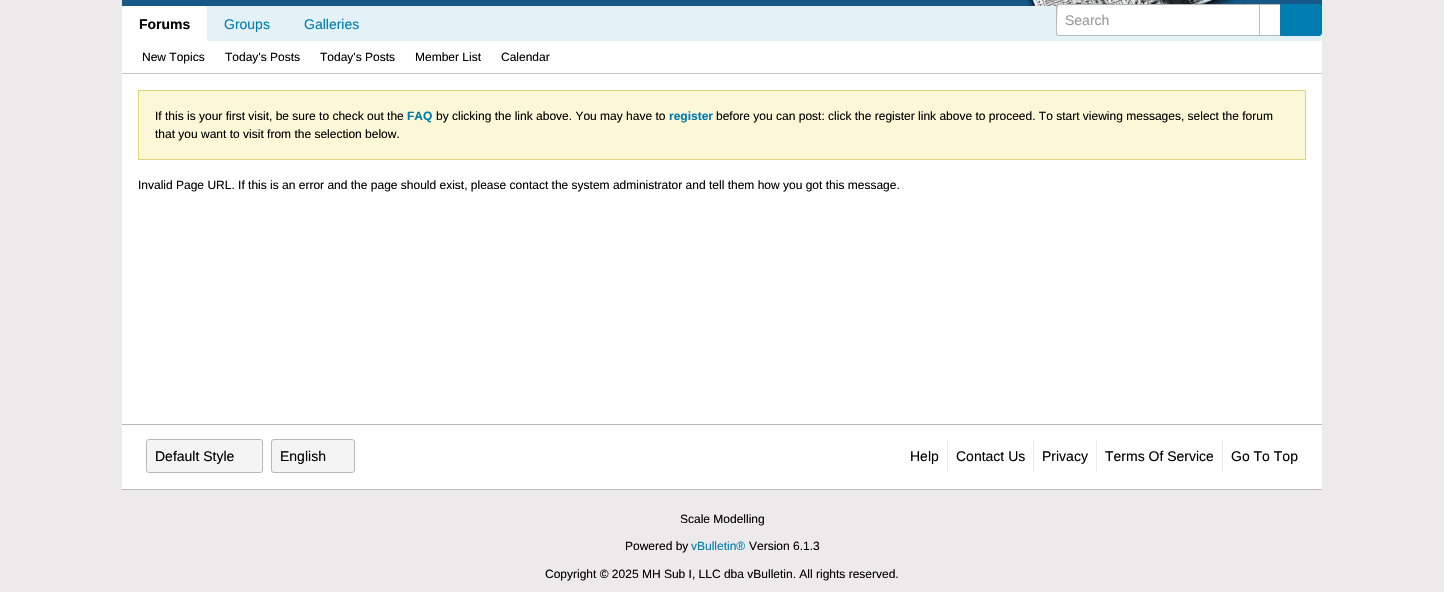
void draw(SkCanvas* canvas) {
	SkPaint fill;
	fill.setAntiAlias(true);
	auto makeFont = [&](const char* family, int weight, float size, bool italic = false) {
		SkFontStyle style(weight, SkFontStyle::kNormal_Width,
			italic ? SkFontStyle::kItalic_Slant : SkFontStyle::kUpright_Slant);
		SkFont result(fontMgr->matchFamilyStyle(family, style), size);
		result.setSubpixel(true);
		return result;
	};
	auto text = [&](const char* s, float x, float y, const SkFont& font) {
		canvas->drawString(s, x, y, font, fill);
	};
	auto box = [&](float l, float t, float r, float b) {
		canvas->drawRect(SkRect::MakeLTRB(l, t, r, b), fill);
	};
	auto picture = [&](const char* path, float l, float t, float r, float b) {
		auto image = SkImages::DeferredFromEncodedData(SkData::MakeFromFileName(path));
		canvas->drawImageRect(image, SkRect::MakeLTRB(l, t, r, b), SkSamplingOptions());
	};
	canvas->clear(0xFFECEAEA);
	fill.setColor(0xFFE4F1F6);
	canvas->drawPath(SkPathBuilder().moveTo(125, 6).lineTo(1319, 6).cubicTo(1320.5f, 6, 1322, 7.5f, 1322, 9).lineTo(1322, 41).lineTo(122, 41).lineTo(122, 9).cubicTo(122, 7.5f, 123.5f, 6, 125, 6).close().detach(), fill);
	fill.setColor(0xFFFFFFFF);
	canvas->drawPath(SkPathBuilder().moveTo(125, 6).lineTo(204, 6).cubicTo(205.5f, 6, 207, 7.5f, 207, 9).lineTo(207, 41).lineTo(122, 41).lineTo(122, 9).cubicTo(122, 7.5f, 123.5f, 6, 125, 6).close().detach(), fill);
	picture("image0.png", 122, 0, 1322, 6);
	canvas->drawPath(SkPathBuilder().moveTo(1059, 4).lineTo(1280, 4).lineTo(1280, 36).lineTo(1059, 36).cubicTo(1057.5f, 36, 1056, 34.5f, 1056, 33).lineTo(1056, 7).cubicTo(1056, 5.5f, 1057.5f, 4, 1059, 4).close().detach(), fill);
	fill.setColor(0xFFB7B7B7);
	canvas->drawPath(SkPathBuilder(SkPathFillType::kEvenOdd).moveTo(1059, 4).lineTo(1280, 4).lineTo(1280, 36).lineTo(1059, 36).cubicTo(1057, 36, 1056, 35, 1056, 33).lineTo(1056, 7).cubicTo(1056, 5, 1057, 4, 1059, 4).close().moveTo(1059, 5).lineTo(1280, 5).lineTo(1280, 35).lineTo(1058, 35).lineTo(1057, 33).cubicTo(1057, 31, 1057, 6, 1058, 6).close().detach(), fill);
	fill.setColor(0xFFBDBDBD);
	box(1259, 4, 1260, 36);
	fill.setColor(0xFF007CB0);
	canvas->drawPath(SkPathBuilder().moveTo(1280.5f, 4.5f).lineTo(1319, 4.5f).cubicTo(1320.5f, 4.5f, 1321.5f, 5.5f, 1321.5f, 7).lineTo(1321.5f, 33).cubicTo(1321.5f, 34.5f, 1320.5f, 35.5f, 1319, 35.5f).lineTo(1280.5f, 35.5f).close().detach(), fill);
	fill.setStyle(SkPaint::kStroke_Style);
	fill.setStrokeWidth(1);
	canvas->drawPath(SkPathBuilder().moveTo(1280.5f, 4.5f).lineTo(1319, 4.5f).cubicTo(1320.5f, 4.5f, 1321.5f, 5.5f, 1321.5f, 7).lineTo(1321.5f, 33).cubicTo(1321.5f, 34.5f, 1320.5f, 35.5f, 1319, 35.5f).lineTo(1280.5f, 35.5f).close().detach(), fill);
	fill.setStyle(SkPaint::kFill_Style);
	fill.setColor(0xFFFFFFFF);
	box(122, 41, 1322, 73);
	fill.setColor(0xFFC7C7C8);
	box(122, 73, 1322, 74);
	fill.setColor(0xFFFFFFFF);
	box(122, 74, 1322, 424);
	fill.setColor(0xFFFCF7D7);
	canvas->drawRect(SkRect::MakeLTRB(138.5f, 90.5f, 1305.5f, 159.5f), fill);
	fill.setStyle(SkPaint::kStroke_Style);
	fill.setColor(0xFFE1D47E);
	canvas->drawRect(SkRect::MakeLTRB(138.5f, 90.5f, 1305.5f, 159.5f), fill);
	fill.setStyle(SkPaint::kFill_Style);
	fill.setColor(0xFFFFFFFF);
	box(122, 425, 1322, 489);
	fill.setColor(0xFFB7B7B7);
	box(122, 424, 1322, 425);
	box(122, 489, 1322, 490);
	fill.setColor(0xFFF5F4F4);
	canvas->drawRoundRect(SkRect::MakeLTRB(146.5f, 439.5f, 262.5f, 472.5f), 2.5f, 2.5f, fill);
	fill.setStyle(SkPaint::kStroke_Style);
	fill.setColor(0xFFB7B7B7);
	canvas->drawRoundRect(SkRect::MakeLTRB(146.5f, 439.5f, 262.5f, 472.5f), 2.5f, 2.5f, fill);
	fill.setStyle(SkPaint::kFill_Style);
	fill.setColor(0xFFF5F4F4);
	canvas->drawRoundRect(SkRect::MakeLTRB(271.5f, 439.5f, 354.5f, 472.5f), 2.5f, 2.5f, fill);
	fill.setStyle(SkPaint::kStroke_Style);
	fill.setColor(0xFFB7B7B7);
	canvas->drawRoundRect(SkRect::MakeLTRB(271.5f, 439.5f, 354.5f, 472.5f), 2.5f, 2.5f, fill);
	fill.setStyle(SkPaint::kFill_Style);
	fill.setColor(0xFFECEAEA);
	box(947, 440, 948, 472);
	box(1033, 440, 1034, 472);
	box(1096, 440, 1097, 472);
	box(1222, 440, 1223, 472);
	auto font1 = makeFont("Liberation Sans", 700, 14);
	fill.setColor(0xFF000000);
	text("Forums", 139, 29, font1);
	auto font2 = makeFont("Liberation Sans", 400, 14);
	fill.setColor(0xFF007CB0);
	text("Groups", 224, 29, font2);
	text("Galleries", 304, 29, font2);
	fill.setColor(0xFF999999);
	text("Search", 1065, 25, font2);
	auto font3 = makeFont("Liberation Sans", 400, 12);
	fill.setColor(0xFF000000);
	text("New Topics", 142, 61, font3);
	text("Today's Posts", 225, 61, font3);
	text("Today's Posts", 320, 61, font3);
	text("Member List", 415, 61, font3);
	text("Calendar", 501, 61, font3);
	text("If this is your first visit, be sure to check out the", 155, 120, font3);
	auto font4 = makeFont("Liberation Sans", 700, 12);
	fill.setColor(0xFF007CB0);
	text("FAQ", 407, 120, font4);
	fill.setColor(0xFF000000);
	text("by clicking the link above. You may have to", 436, 120, font3);
	fill.setColor(0xFF007CB0);
	text("register", 669, 120, font4);
	fill.setColor(0xFF000000);
	text("before you can post: click the register link above to proceed. To start viewing messages, select the forum", 716, 120, font3);
	text("that you want to visit from the selection below.", 155, 138, font3);
	text("Invalid Page URL. If this is an error and the page should exist, please contact the system administrator and tell them how you got this message.", 138, 189, font3);
	text("Default Style", 155, 461, font2);
	text("English", 280, 461, font2);
	text("Help", 910, 461, font2);
	text("Contact Us", 956, 461, font2);
	text("Privacy", 1042, 461, font2);
	text("Terms Of Service", 1105, 461, font2);
	text("Go To Top", 1231, 461, font2);
	text("Scale Modelling", 680, 523, font3);
	text("Powered by", 625, 550, font3);
	fill.setColor(0xFF007CB0);
	text("vBulletin®", 691, 550, font3);
	fill.setColor(0xFF000000);
	text("Version 6.1.3", 749, 550, font3);
	text("Copyright © 2025 MH Sub I, LLC dba vBulletin. All rights reserved.", 545, 578, font3);
}
